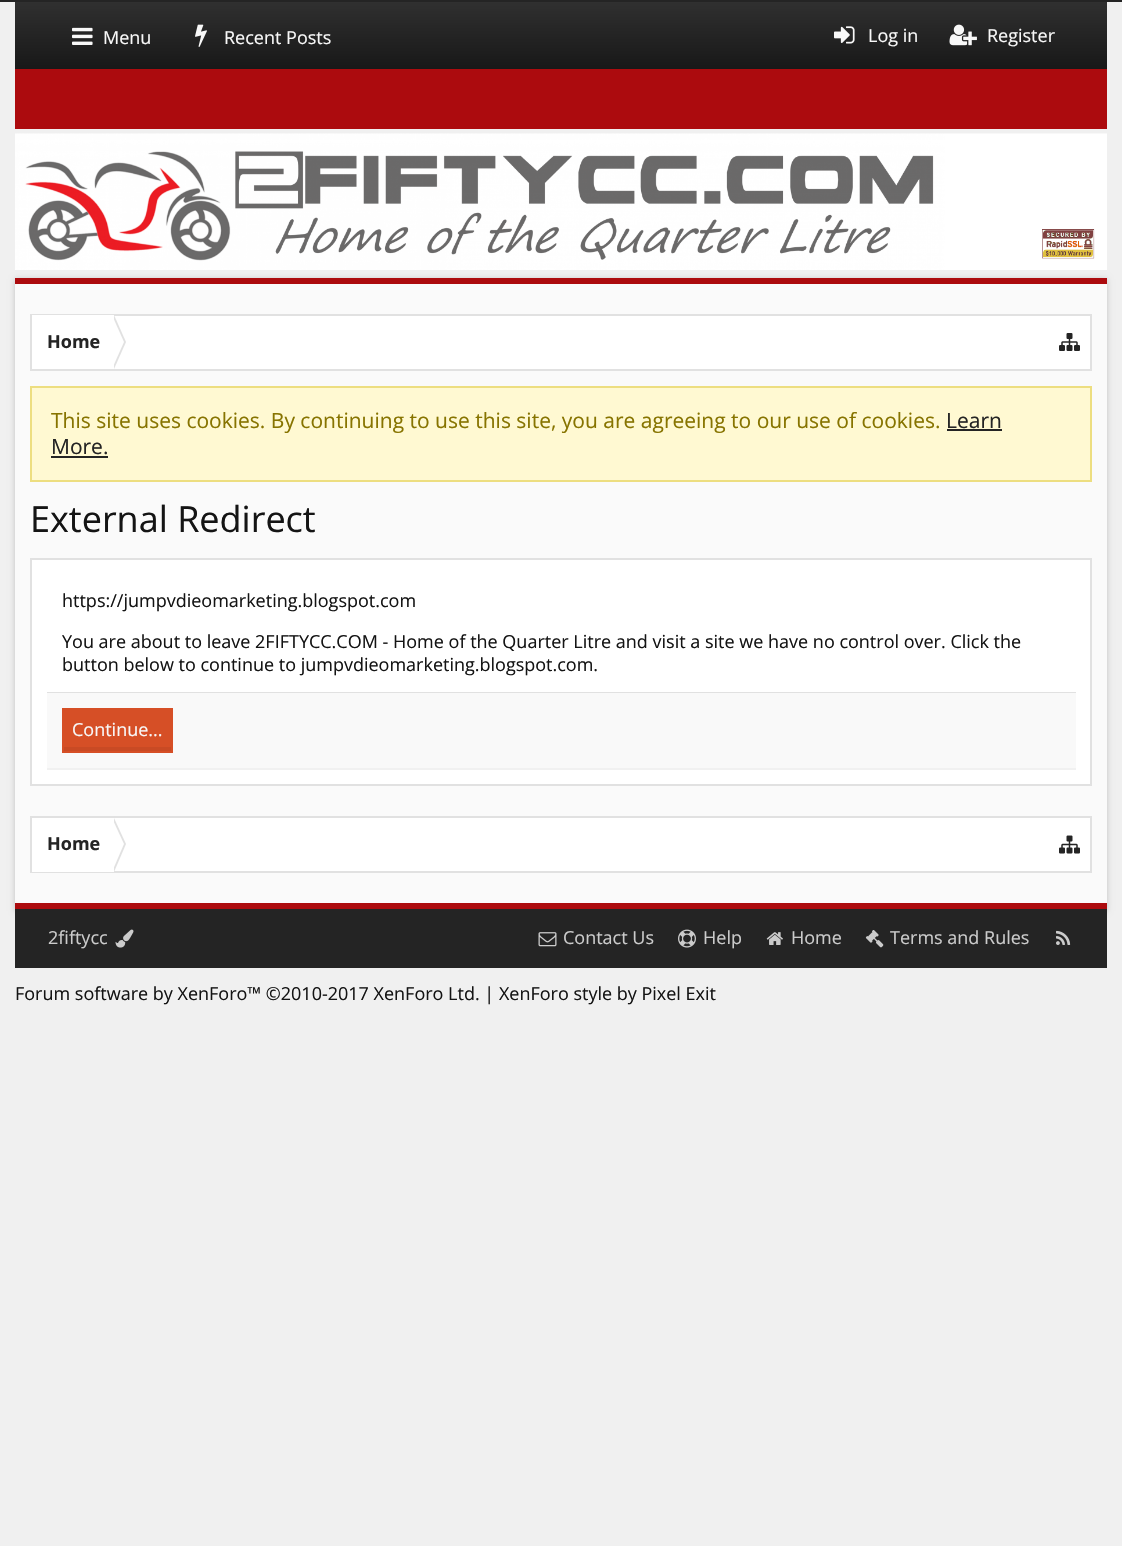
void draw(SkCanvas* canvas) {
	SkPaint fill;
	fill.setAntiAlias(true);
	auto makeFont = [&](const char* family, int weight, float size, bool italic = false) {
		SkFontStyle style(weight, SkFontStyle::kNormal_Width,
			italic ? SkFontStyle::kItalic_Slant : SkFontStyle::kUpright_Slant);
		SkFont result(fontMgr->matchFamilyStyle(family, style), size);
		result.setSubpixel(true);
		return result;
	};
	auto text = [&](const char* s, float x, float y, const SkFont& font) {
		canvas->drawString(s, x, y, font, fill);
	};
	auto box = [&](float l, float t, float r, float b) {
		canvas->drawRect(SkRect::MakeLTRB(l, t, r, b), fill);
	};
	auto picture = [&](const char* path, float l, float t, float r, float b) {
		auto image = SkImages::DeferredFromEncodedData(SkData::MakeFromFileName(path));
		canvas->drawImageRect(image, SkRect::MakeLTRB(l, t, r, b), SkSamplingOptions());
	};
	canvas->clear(0xFFF0F0F0);
	fill.setColor(0xFF242424);
	box(0, 0, 1122, 2);
	{
		const SkColor colors[] = {0xFF303030, 0xFF181818};
		const float stops[] = {0, 1};
		const SkPoint ends[] = {{561, 1.5f}, {561, 69}};
		fill.setShader(SkGradientShader::MakeLinear(ends, colors, stops, 2, SkTileMode::kClamp));
		fill.setAlpha(255);
	}
	box(15, 2, 1107, 69);
	picture("image0.png", 72, 27, 93, 45);
	picture("image1.png", 195, 24, 207, 47);
	picture("image2.png", 834, 26, 855, 44);
	picture("image3.png", 949, 24, 977, 46);
	fill.setShader(nullptr);
	fill.setColor(0xFFAC0B0E);
	box(15, 69, 1107, 129);
	picture("image4.png", 15, 133, 1107, 270);
	fill.setColor(0xFFC2C2C2);
	fill.setMaskFilter(SkMaskFilter::MakeBlur(kNormal_SkBlurStyle, 3));
	canvas->drawRect(SkRect::MakeLTRB(15, 279, 1107, 911), fill);
	fill.setMaskFilter(nullptr);
	fill.setColor(0xFFFAFAFA);
	box(15, 284, 1107, 903);
	fill.setColor(0xFFAC0B0E);
	box(15, 278, 1107, 284);
	box(15, 903, 1107, 909);
	fill.setColor(0xFFFFFFFF);
	box(114, 316, 1090, 369);
	fill.setStyle(SkPaint::kStroke_Style);
	fill.setStrokeWidth(2);
	fill.setColor(0xFFE1E1E1);
	canvas->drawRect(SkRect::MakeLTRB(31, 315, 1091, 370), fill);
	fill.setStyle(SkPaint::kFill_Style);
	fill.setColor(0xFFFFFFFF);
	box(32, 315, 114, 369);
	fill.setColor(0xFFE1E1E1);
	canvas->drawPath(SkPathBuilder().moveTo(114, 369).lineTo(114, 315).lineTo(126, 342).close().detach(), fill);
	fill.setColor(0xFFFFFFFF);
	canvas->drawPath(SkPathBuilder().moveTo(112, 369).lineTo(112, 315).lineTo(124, 342).close().detach(), fill);
	picture("image5.png", 1059, 333, 1080, 351);
	fill.setColor(0xFFFFF9D2);
	canvas->drawRect(SkRect::MakeLTRB(31, 387, 1091, 481), fill);
	fill.setStyle(SkPaint::kStroke_Style);
	fill.setColor(0xFFEDDE80);
	canvas->drawRect(SkRect::MakeLTRB(31, 387, 1091, 481), fill);
	fill.setStyle(SkPaint::kFill_Style);
	fill.setColor(0xFF242424);
	box(947, 429, 1002, 431);
	box(51, 456, 108, 458);
	fill.setColor(0xFFFFFFFF);
	canvas->drawRect(SkRect::MakeLTRB(31, 559, 1091, 785), fill);
	fill.setStyle(SkPaint::kStroke_Style);
	fill.setColor(0xFFE1E1E1);
	canvas->drawRect(SkRect::MakeLTRB(31, 559, 1091, 785), fill);
	fill.setStyle(SkPaint::kFill_Style);
	box(47, 692, 1076, 693);
	fill.setColor(0xFFF9F9F9);
	box(47, 693, 1076, 768);
	fill.setColor(0xFFF1F1F1);
	box(47, 768, 1076, 770);
	fill.setColor(0xFFD64F26);
	box(64, 710, 171, 747);
	fill.setColor(0xFFC94A24);
	box(63, 747, 171, 751);
	fill.setStyle(SkPaint::kStroke_Style);
	fill.setColor(0xFFD64F26);
	canvas->drawRect(SkRect::MakeLTRB(63, 709, 172, 752), fill);
	fill.setStyle(SkPaint::kFill_Style);
	fill.setColor(0xFFFFFFFF);
	box(114, 818, 1090, 871);
	fill.setStyle(SkPaint::kStroke_Style);
	fill.setColor(0xFFE1E1E1);
	canvas->drawRect(SkRect::MakeLTRB(31, 817, 1091, 872), fill);
	fill.setStyle(SkPaint::kFill_Style);
	fill.setColor(0xFFFFFFFF);
	box(32, 818, 114, 872);
	fill.setColor(0xFFE1E1E1);
	canvas->drawPath(SkPathBuilder().moveTo(114, 872).lineTo(114, 818).lineTo(126, 844).close().detach(), fill);
	fill.setColor(0xFFFFFFFF);
	canvas->drawPath(SkPathBuilder().moveTo(112, 872).lineTo(112, 818).lineTo(124, 844).close().detach(), fill);
	picture("image6.png", 1059, 835, 1080, 854);
	fill.setColor(0xFF242424);
	box(15, 909, 1107, 968);
	picture("image7.png", 115, 929, 134, 948);
	picture("image8.png", 538, 932, 557, 947);
	picture("image9.png", 678, 929, 696, 948);
	picture("image10.png", 766, 932, 783, 945);
	picture("image11.png", 865, 930, 884, 948);
	picture("image12.png", 1056, 930, 1071, 945);
	auto font1 = makeFont("Open Sans", 400, 18);
	fill.setColor(0xFFF8F8F8);
	text("Menu", 103, 44, font1);
	text("Recent Posts", 224, 44, font1);
	text("Log in", 868, 42, font1);
	text("Register", 987, 42, font1);
	auto font2 = makeFont("Open Sans", 700, 18);
	fill.setColor(0xFF242424);
	text("Home", 47, 348, font2);
	auto font3 = makeFont("Open Sans", 400, 21);
	fill.setColor(0xFF877400);
	text("This site uses cookies. By continuing to use this site, you are agreeing to our use of cookies.", 51, 428, font3);
	fill.setColor(0xFF242424);
	text("Learn", 946, 428, font3);
	text("More.", 51, 454, font3);
	auto font4 = makeFont("Open Sans", 400, 36);
	fill.setColor(0xFF141414);
	text("External Redirect", 30, 532, font4);
	text("https://jumpvdieomarketing.blogspot.com", 62, 607, font1);
	text("You are about to leave 2FIFTYCC.COM - Home of the Quarter Litre and visit a site we have no control over. Click the", 62, 648, font1);
	text("button below to continue to jumpvdieomarketing.blogspot.com.", 62, 671, font1);
	fill.setColor(0xFFF8F8F8);
	text("Continue...", 72, 736, font1);
	fill.setColor(0xFF242424);
	text("Home", 47, 850, font2);
	fill.setColor(0xFFCBCBCB);
	text("2fiftycc", 48, 944, font1);
	text("Contact Us", 563, 944, font1);
	text("Help", 703, 944, font1);
	text("Home", 791, 944, font1);
	text("Terms and Rules", 890, 944, font1);
	fill.setColor(0xFF141414);
	text("Forum software by XenForo™ ©2010-2017 XenForo Ltd. | XenForo style by Pixel Exit", 15, 1000, font1);
}
